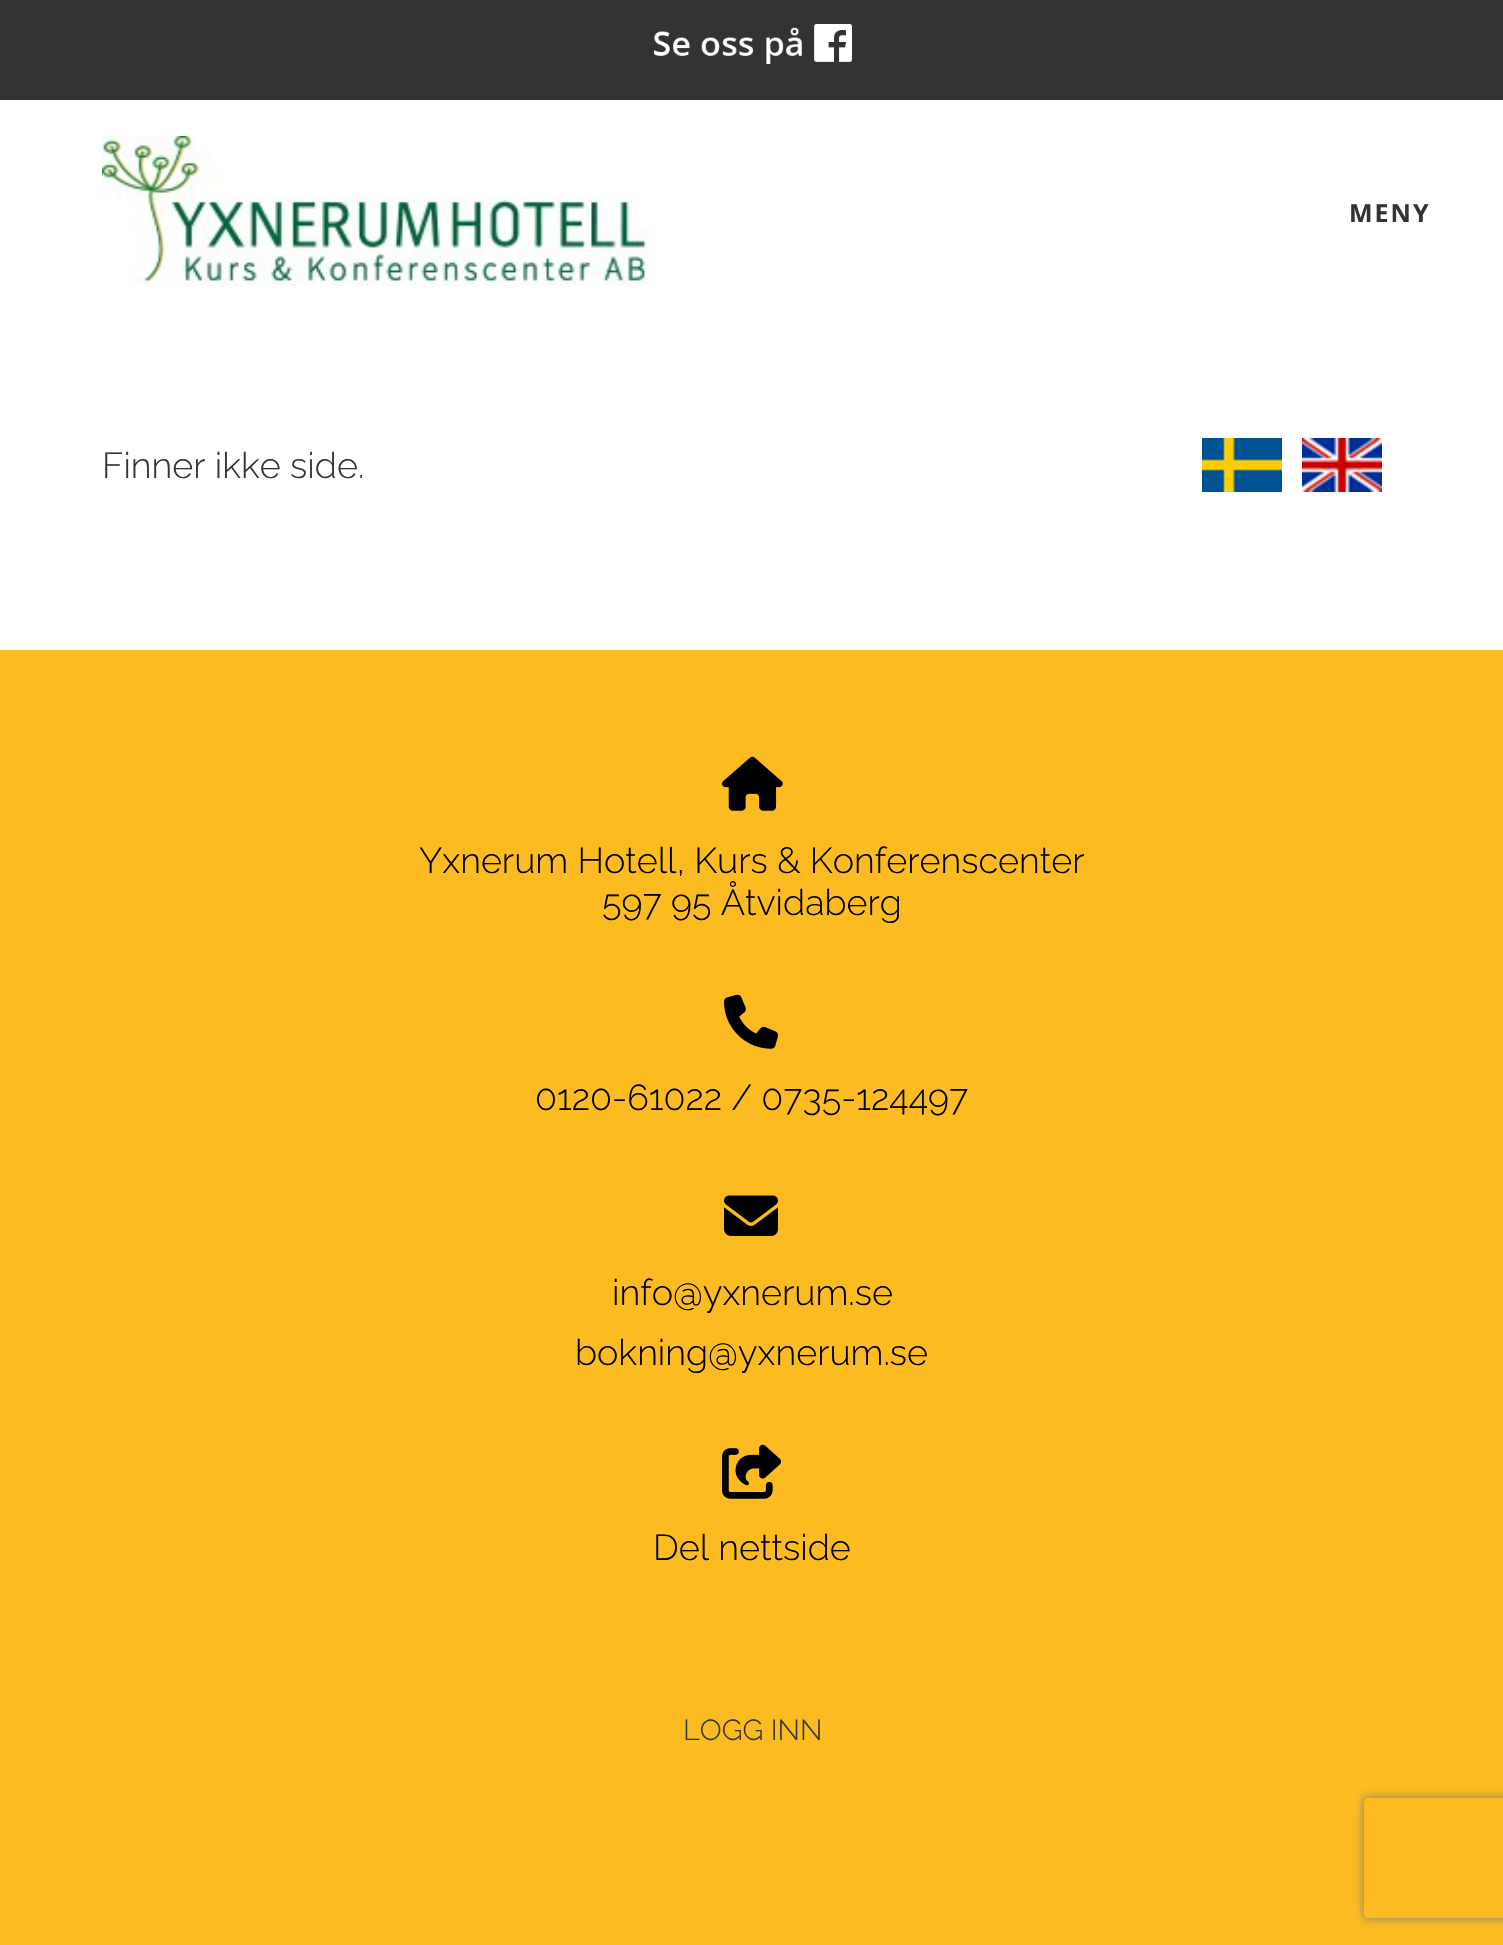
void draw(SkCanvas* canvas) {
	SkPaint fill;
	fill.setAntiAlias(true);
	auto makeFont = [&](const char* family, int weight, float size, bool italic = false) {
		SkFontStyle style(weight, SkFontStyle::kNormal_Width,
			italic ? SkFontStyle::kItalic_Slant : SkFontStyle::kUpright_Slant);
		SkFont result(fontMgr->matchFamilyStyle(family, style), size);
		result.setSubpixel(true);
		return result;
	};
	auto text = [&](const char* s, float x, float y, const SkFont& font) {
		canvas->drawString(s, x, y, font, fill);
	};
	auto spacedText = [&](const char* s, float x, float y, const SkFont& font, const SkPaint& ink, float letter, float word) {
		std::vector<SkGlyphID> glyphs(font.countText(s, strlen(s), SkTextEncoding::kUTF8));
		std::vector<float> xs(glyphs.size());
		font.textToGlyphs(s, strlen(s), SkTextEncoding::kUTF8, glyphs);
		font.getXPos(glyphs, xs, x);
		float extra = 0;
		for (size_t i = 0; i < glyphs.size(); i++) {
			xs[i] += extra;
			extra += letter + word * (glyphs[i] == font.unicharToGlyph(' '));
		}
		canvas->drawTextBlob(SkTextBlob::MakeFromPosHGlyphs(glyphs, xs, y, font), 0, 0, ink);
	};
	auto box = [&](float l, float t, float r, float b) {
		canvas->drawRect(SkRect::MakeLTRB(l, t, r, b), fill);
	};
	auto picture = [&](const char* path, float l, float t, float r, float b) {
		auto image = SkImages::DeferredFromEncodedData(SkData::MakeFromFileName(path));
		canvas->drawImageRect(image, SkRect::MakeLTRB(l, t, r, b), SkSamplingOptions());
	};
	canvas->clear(0xFFFBBB21);
	fill.setColor(0xFFFFFFFF);
	box(0, 100, 1503, 650);
	picture("image0.png", 102, 136, 650, 286);
	fill.setColor(0xFF333333);
	box(0, 0, 1503, 100);
	picture("image1.png", 654, 24, 852, 64);
	picture("image2.png", 1202, 438, 1282, 492);
	picture("image3.png", 1302, 438, 1382, 492);
	picture("image4.png", 722, 756, 783, 811);
	picture("image5.png", 724, 994, 778, 1049);
	picture("image6.png", 724, 1195, 778, 1236);
	picture("image7.png", 722, 1444, 782, 1499);
	canvas->save();
	canvas->clipPath(SkPathBuilder(SkPathFillType::kEvenOdd).moveTo(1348, 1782).lineTo(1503, 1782).lineTo(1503, 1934).lineTo(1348, 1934).close().moveTo(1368, 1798).lineTo(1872, 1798).cubicTo(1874, 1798, 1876, 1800, 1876, 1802).lineTo(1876, 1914).cubicTo(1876, 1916, 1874, 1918, 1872, 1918).lineTo(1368, 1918).cubicTo(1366, 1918, 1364, 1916, 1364, 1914).lineTo(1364, 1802).cubicTo(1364, 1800, 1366, 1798, 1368, 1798).close().detach(), true);
	fill.setColor(0xFF808080);
	fill.setMaskFilter(SkMaskFilter::MakeBlur(kNormal_SkBlurStyle, 5));
	canvas->drawRoundRect(SkRect::MakeLTRB(1364, 1798, 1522, 1918), 4, 4, fill);
	fill.setMaskFilter(nullptr);
	canvas->restore();
	auto font1 = makeFont("Open Sans", 700, 25);
	fill.setColor(0xFF333333);
	spacedText("MENY", 1349, 222, font1, fill, 2, 0);
	auto font2 = makeFont("Raleway", 300, 36);
	text("Finner ikke side.", 102, 478, font2);
	fill.setColor(0xFF000000);
	text("Yxnerum Hotell, Kurs & Konferenscenter", 419, 873, font2);
	text("597 95 Åtvidaberg", 602, 915, font2);
	text("0120-61022 / 0735-124497", 535, 1110, font2);
	text("info@yxnerum.se", 612, 1305, font2);
	text("bokning@yxnerum.se", 575, 1365, font2);
	text("Del nettside", 653, 1560, font2);
	auto font3 = makeFont("Raleway", 300, 29);
	fill.setColor(0xFF333333);
	text("LOGG INN", 683, 1740, font3);
}
